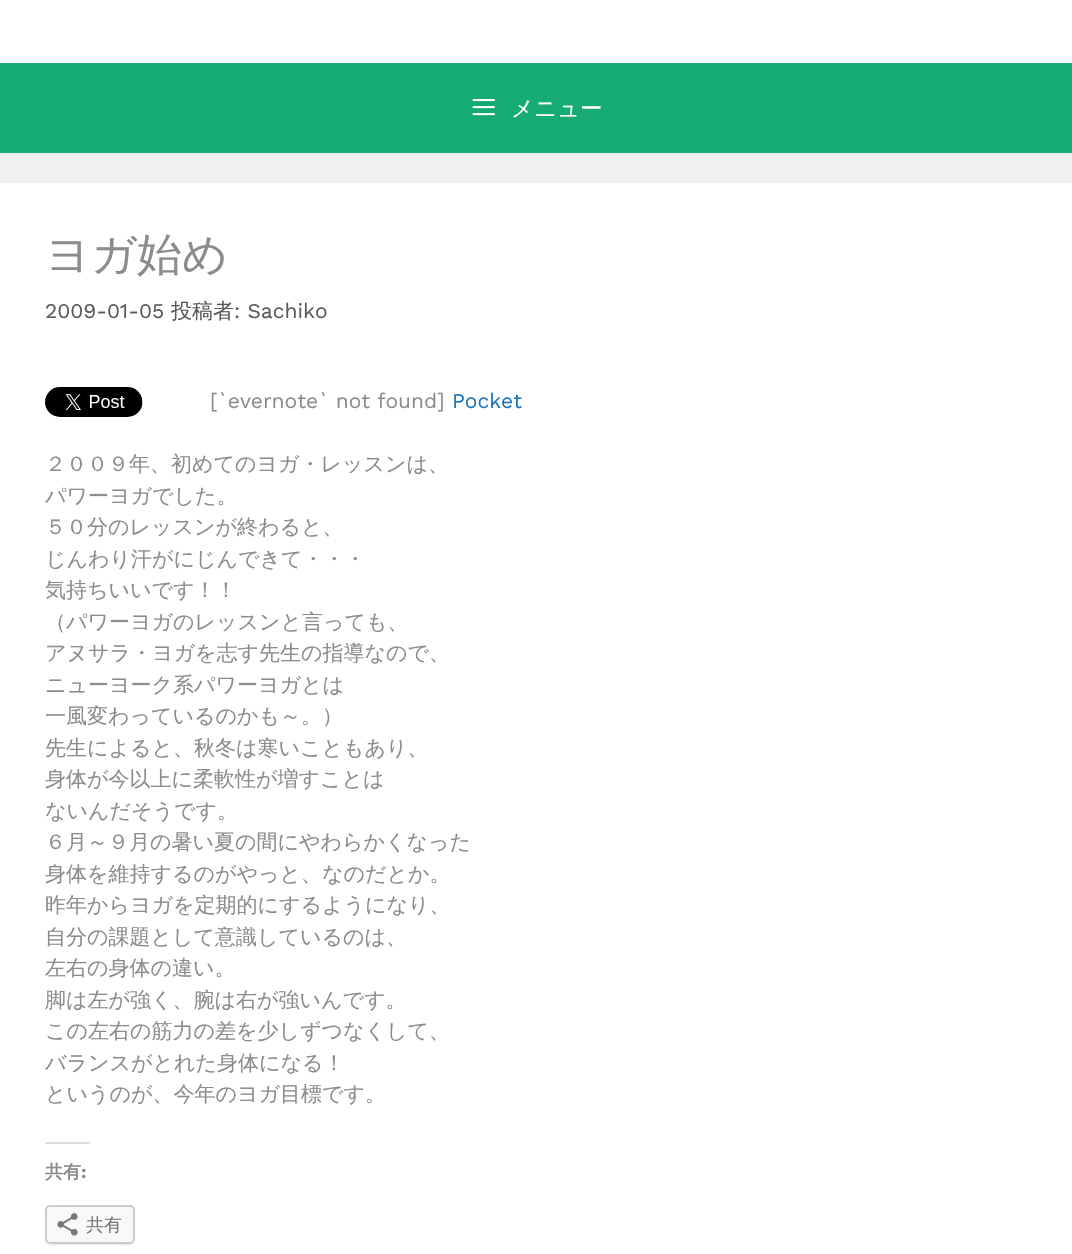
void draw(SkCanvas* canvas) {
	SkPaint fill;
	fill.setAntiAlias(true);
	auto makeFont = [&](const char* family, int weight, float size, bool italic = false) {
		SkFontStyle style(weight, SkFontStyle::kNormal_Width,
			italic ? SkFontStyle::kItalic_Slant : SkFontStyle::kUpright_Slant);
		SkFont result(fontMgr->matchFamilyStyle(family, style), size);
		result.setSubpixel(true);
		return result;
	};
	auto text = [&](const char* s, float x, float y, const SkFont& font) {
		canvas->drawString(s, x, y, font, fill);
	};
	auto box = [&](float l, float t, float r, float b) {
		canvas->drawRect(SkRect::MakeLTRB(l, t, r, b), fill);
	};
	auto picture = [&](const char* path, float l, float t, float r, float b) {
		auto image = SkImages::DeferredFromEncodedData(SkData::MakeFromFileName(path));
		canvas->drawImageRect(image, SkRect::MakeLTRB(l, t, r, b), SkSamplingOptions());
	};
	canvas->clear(0xFFEFEFEF);
	fill.setColor(0xFFFFFFFF);
	box(0, 0, 1072, 63);
	fill.setColor(0xFF16AA74);
	box(0, 63, 1072, 153);
	picture("image0.png", 472, 99, 495, 116);
	fill.setColor(0xFFFFFFFF);
	box(0, 183, 1072, 1254);
	picture("image1.png", 45, 387, 143, 417);
	fill.setColor(0xFFDDDDDD);
	box(45, 1142, 90, 1144);
	fill.setColor(0xFFEBEBEB);
	canvas->drawPath(SkPathBuilder().moveTo(45, 1239).cubicTo(45, 1248, 58, 1245, 63, 1245).lineTo(117, 1245).cubicTo(122, 1245, 135, 1248, 135, 1239).cubicTo(135, 1241, 133, 1244, 130, 1244).lineTo(50, 1244).cubicTo(47, 1244, 45, 1241, 45, 1239).close().detach(), fill);
	fill.setColor(0xFFF8F8F8);
	canvas->drawRoundRect(SkRect::MakeLTRB(46, 1206, 134, 1243), 4, 4, fill);
	fill.setStyle(SkPaint::kStroke_Style);
	fill.setStrokeWidth(2);
	fill.setColor(0xFFCCCCCC);
	canvas->drawRoundRect(SkRect::MakeLTRB(46, 1206, 134, 1243), 4, 4, fill);
	picture("image2.png", 57, 1213, 78, 1236);
	auto font1 = makeFont("WenQuanYi Zen Hei", 500, 22.5f);
	fill.setStyle(SkPaint::kFill_Style);
	fill.setColor(0xFFFFFFFF);
	text("メニュー", 511, 116, font1);
	auto font2 = makeFont("WenQuanYi Zen Hei", 500, 45);
	fill.setColor(0xFF8C8C8C);
	text("ヨガ始め", 45, 270, font2);
	auto font3 = makeFont("Work Sans", 400, 21);
	fill.setColor(0xFF595959);
	text("2009-01-05", 45, 318, font3);
	auto font4 = makeFont("WenQuanYi Zen Hei", 500, 21);
	text("投稿者", 171, 318, font4);
	text(": Sachiko", 234, 318, font3);
	fill.setColor(0xFF8C8C8C);
	text("[`evernote` not found]", 210, 408, font3);
	fill.setColor(0xFF1E73BE);
	text("Pocket", 452, 408, font3);
	fill.setColor(0xFF8C8C8C);
	text("２００９年、初めてのヨガ・レッスンは、", 45, 471, font4);
	text("パワーヨガでした。", 45, 503, font4);
	text("５０分のレッスンが終わると、", 45, 534, font4);
	text("じんわり汗がにじんできて・・・", 45, 566, font4);
	text("気持ちいいです！！", 45, 597, font4);
	text("（パワーヨガのレッスンと言っても、", 45, 629, font4);
	text("アヌサラ・ヨガを志す先生の指導なので、", 45, 660, font4);
	text("ニューヨーク系パワーヨガとは", 45, 692, font4);
	text("一風変わっているのかも～。）", 45, 723, font4);
	text("先生によると、秋冬は寒いこともあり、", 45, 755, font4);
	text("身体が今以上に柔軟性が増すことは", 45, 786, font4);
	text("ないんだそうです。", 45, 818, font4);
	text("６月～９月の暑い夏の間にやわらかくなった", 45, 849, font4);
	text("身体を維持するのがやっと、なのだとか。", 45, 881, font4);
	text("昨年からヨガを定期的にするようになり、", 45, 912, font4);
	text("自分の課題として意識しているのは、", 45, 944, font4);
	text("左右の身体の違い。", 45, 975, font4);
	text("脚は左が強く、腕は右が強いんです。", 45, 1007, font4);
	text("この左右の筋力の差を少しずつなくして、", 45, 1038, font4);
	text("バランスがとれた身体になる！", 45, 1070, font4);
	text("というのが、今年のヨガ目標です。", 45, 1101, font4);
	auto font5 = makeFont("WenQuanYi Zen Hei", 700, 18);
	text("共有", 45, 1178, font5);
	auto font6 = makeFont("Work Sans", 700, 18);
	text(":", 81, 1178, font6);
	auto font7 = makeFont("WenQuanYi Zen Hei", 500, 18);
	fill.setColor(0xFF777777);
	text("共有", 86, 1231, font7);
}
